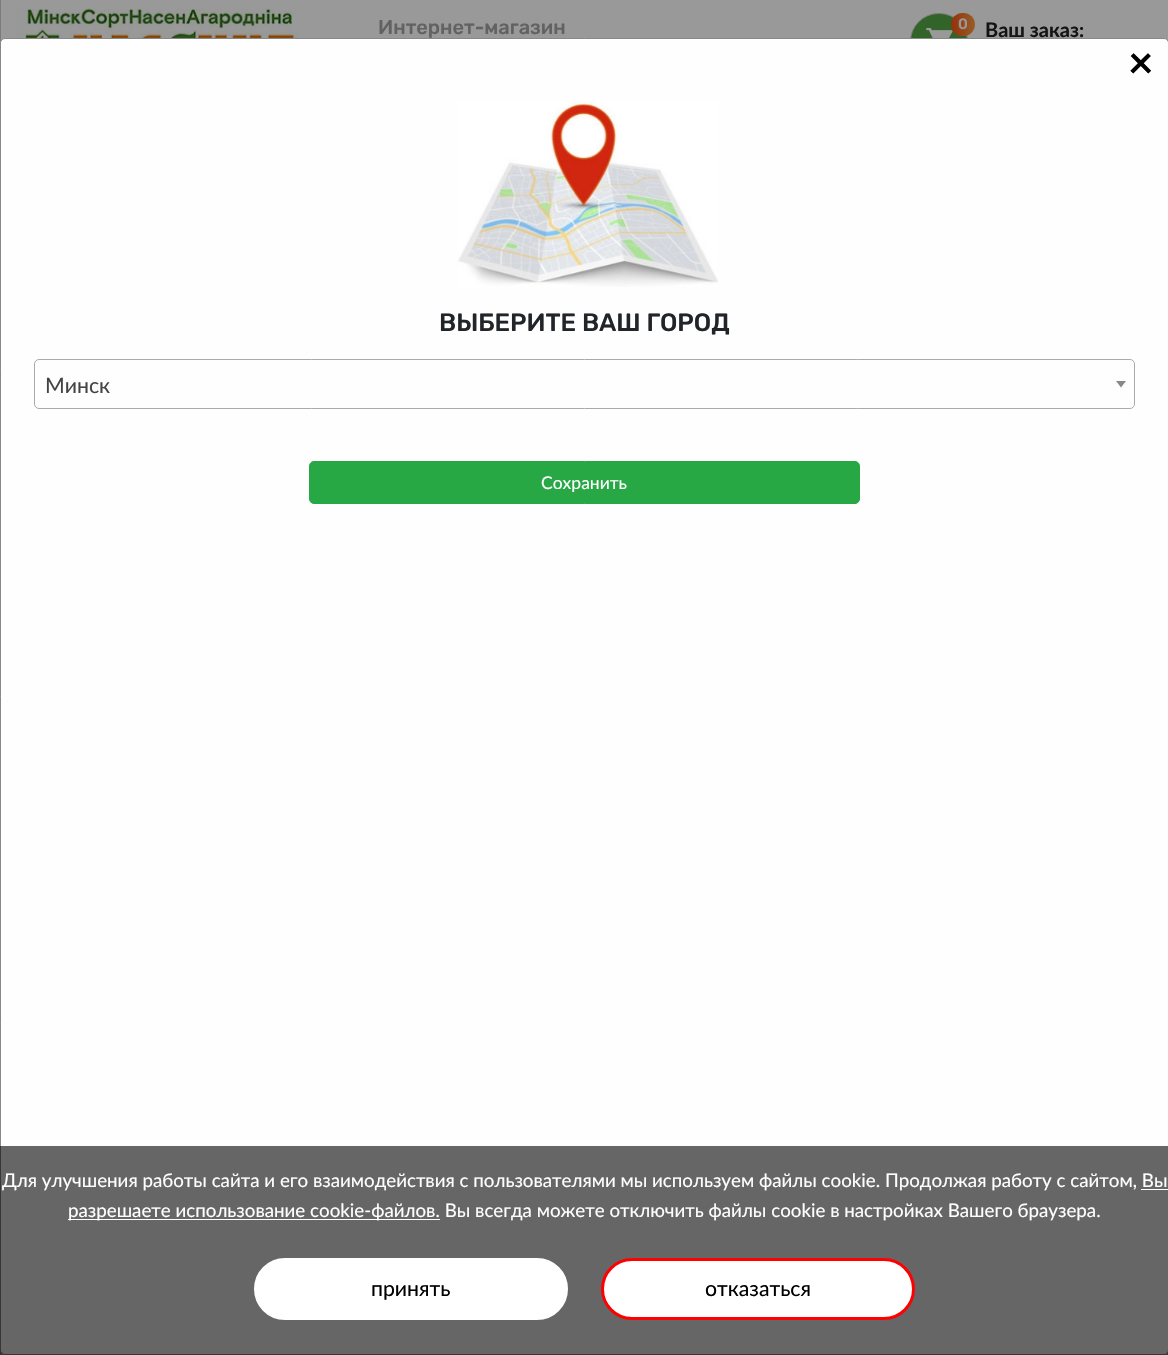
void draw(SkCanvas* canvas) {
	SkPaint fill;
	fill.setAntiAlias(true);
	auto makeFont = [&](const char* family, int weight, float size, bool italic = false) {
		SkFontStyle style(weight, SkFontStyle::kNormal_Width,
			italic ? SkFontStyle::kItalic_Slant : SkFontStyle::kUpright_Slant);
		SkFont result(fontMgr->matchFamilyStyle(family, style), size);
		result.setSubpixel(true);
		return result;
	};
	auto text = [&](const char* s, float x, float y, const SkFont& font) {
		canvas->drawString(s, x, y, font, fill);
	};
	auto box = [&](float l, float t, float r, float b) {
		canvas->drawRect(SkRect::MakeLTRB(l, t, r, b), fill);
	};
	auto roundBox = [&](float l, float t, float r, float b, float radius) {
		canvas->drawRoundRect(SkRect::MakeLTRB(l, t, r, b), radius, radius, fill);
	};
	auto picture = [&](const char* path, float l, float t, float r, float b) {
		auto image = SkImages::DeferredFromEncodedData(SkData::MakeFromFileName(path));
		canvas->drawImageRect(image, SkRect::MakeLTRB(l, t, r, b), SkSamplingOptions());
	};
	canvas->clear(0xFF999999);
	fill.setColor(0xFF7B7B7B);
	box(0, 0, 1, 1355);
	picture("image0.png", 15, 8, 299, 38);
	fill.setColor(0xFF326329);
	canvas->drawRoundRect(SkRect::MakeLTRB(910.5f, 13.5f, 967.5f, 69.5f), 28, 28, fill);
	fill.setStyle(SkPaint::kStroke_Style);
	fill.setStrokeWidth(1);
	fill.setColor(0xFF7B7B7B);
	canvas->drawRoundRect(SkRect::MakeLTRB(910.5f, 13.5f, 967.5f, 69.5f), 28, 28, fill);
	picture("image1.png", 926, 28, 953, 38);
	fill.setStyle(SkPaint::kFill_Style);
	{
		const SkColor colors[] = {0xFF95310E, 0xFF975E25};
		const float stops[] = {0, 1};
		const SkPoint ends[] = {{951, 24}, {975, 24}};
		fill.setShader(SkGradientShader::MakeLinear(ends, colors, stops, 2, SkTileMode::kClamp));
		fill.setAlpha(255);
	}
	roundBox(951, 13, 975, 36, 11.5f);
	fill.setShader(nullptr);
	fill.setColor(0xFFFEFEFE);
	canvas->drawRoundRect(SkRect::MakeLTRB(0.5f, 38.5f, 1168.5f, 1354.5f), 4.5f, 4.5f, fill);
	fill.setStyle(SkPaint::kStroke_Style);
	fill.setColor(0xFF888888);
	canvas->drawRoundRect(SkRect::MakeLTRB(0.5f, 38.5f, 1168.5f, 1354.5f), 4.5f, 4.5f, fill);
	picture("image2.png", 458, 101, 718, 287);
	fill.setColor(0xFFAAAAAA);
	canvas->drawRoundRect(SkRect::MakeLTRB(34.5f, 359.5f, 1134.5f, 408.5f), 4.5f, 4.5f, fill);
	fill.setStyle(SkPaint::kFill_Style);
	fill.setColor(0xFF888888);
	canvas->drawPath(SkPathBuilder().moveTo(1116, 381).lineTo(1126, 381).lineTo(1121, 387.5f).close().detach(), fill);
	fill.setColor(0xFF28A745);
	canvas->drawRoundRect(SkRect::MakeLTRB(309.5f, 461.5f, 859.5f, 503.5f), 4.5f, 4.5f, fill);
	fill.setStyle(SkPaint::kStroke_Style);
	canvas->drawRoundRect(SkRect::MakeLTRB(309.5f, 461.5f, 859.5f, 503.5f), 4.5f, 4.5f, fill);
	fill.setStyle(SkPaint::kFill_Style);
	fill.setColor(0x99000000);
	box(0, 1146, 1168, 1355);
	fill.setColor(0xFFFFFFFF);
	box(1141, 1189, 1168, 1190);
	box(68, 1219, 440, 1220);
	canvas->drawRoundRect(SkRect::MakeLTRB(255.5f, 1259.5f, 566.5f, 1318.5f), 29.5f, 29.5f, fill);
	fill.setStyle(SkPaint::kStroke_Style);
	fill.setStrokeWidth(3);
	canvas->drawRoundRect(SkRect::MakeLTRB(255.5f, 1259.5f, 566.5f, 1318.5f), 29.5f, 29.5f, fill);
	fill.setStyle(SkPaint::kFill_Style);
	canvas->drawRoundRect(SkRect::MakeLTRB(602.5f, 1259.5f, 913.5f, 1318.5f), 29.5f, 29.5f, fill);
	fill.setStyle(SkPaint::kStroke_Style);
	fill.setColor(0xFFFF0000);
	canvas->drawRoundRect(SkRect::MakeLTRB(602.5f, 1259.5f, 913.5f, 1318.5f), 29.5f, 29.5f, fill);
	auto font1 = makeFont("Rubik", 500, 20);
	fill.setStyle(SkPaint::kFill_Style);
	fill.setColor(0xFF626262);
	text("Интернет-магазин", 378, 34, font1);
	auto font2 = makeFont("Rubik", 500, 15);
	fill.setColor(0xFF999999);
	text("0", 958, 29, font2);
	auto font3 = makeFont("Lato", 700, 20);
	fill.setColor(0xFF141414);
	text("Ваш заказ:", 985, 37, font3);
	auto font4 = makeFont("Lato", 700, 44);
	fill.setColor(0xFF000000);
	text("×", 1128, 78, font4);
	auto font5 = makeFont("Rubik", 500, 25);
	fill.setColor(0xFF212529);
	text("ВЫБЕРИТЕ ВАШ ГОРОД", 439, 331, font5);
	auto font6 = makeFont("Lato", 400, 21.25f);
	fill.setColor(0xFF444444);
	text("Минск", 45, 393, font6);
	auto font7 = makeFont("Lato", 400, 17.5f);
	fill.setColor(0xFFFFFFFF);
	text("Сохранить", 541, 489, font7);
	auto font8 = makeFont("Lato", 400, 18.75f);
	text("Для улучшения работы сайта и его взаимодействия с пользователями мы используем файлы cookie. Продолжая работу с сайтом, Вы", 2, 1187, font8);
	text("разрешаете использование cookie-файлов. Вы всегда можете отключить файлы cookie в настройках Вашего браузера.", 68, 1217, font8);
	fill.setColor(0xFF000000);
	text("принять", 371, 1296, font6);
	text("отказаться", 705, 1296, font6);
}
